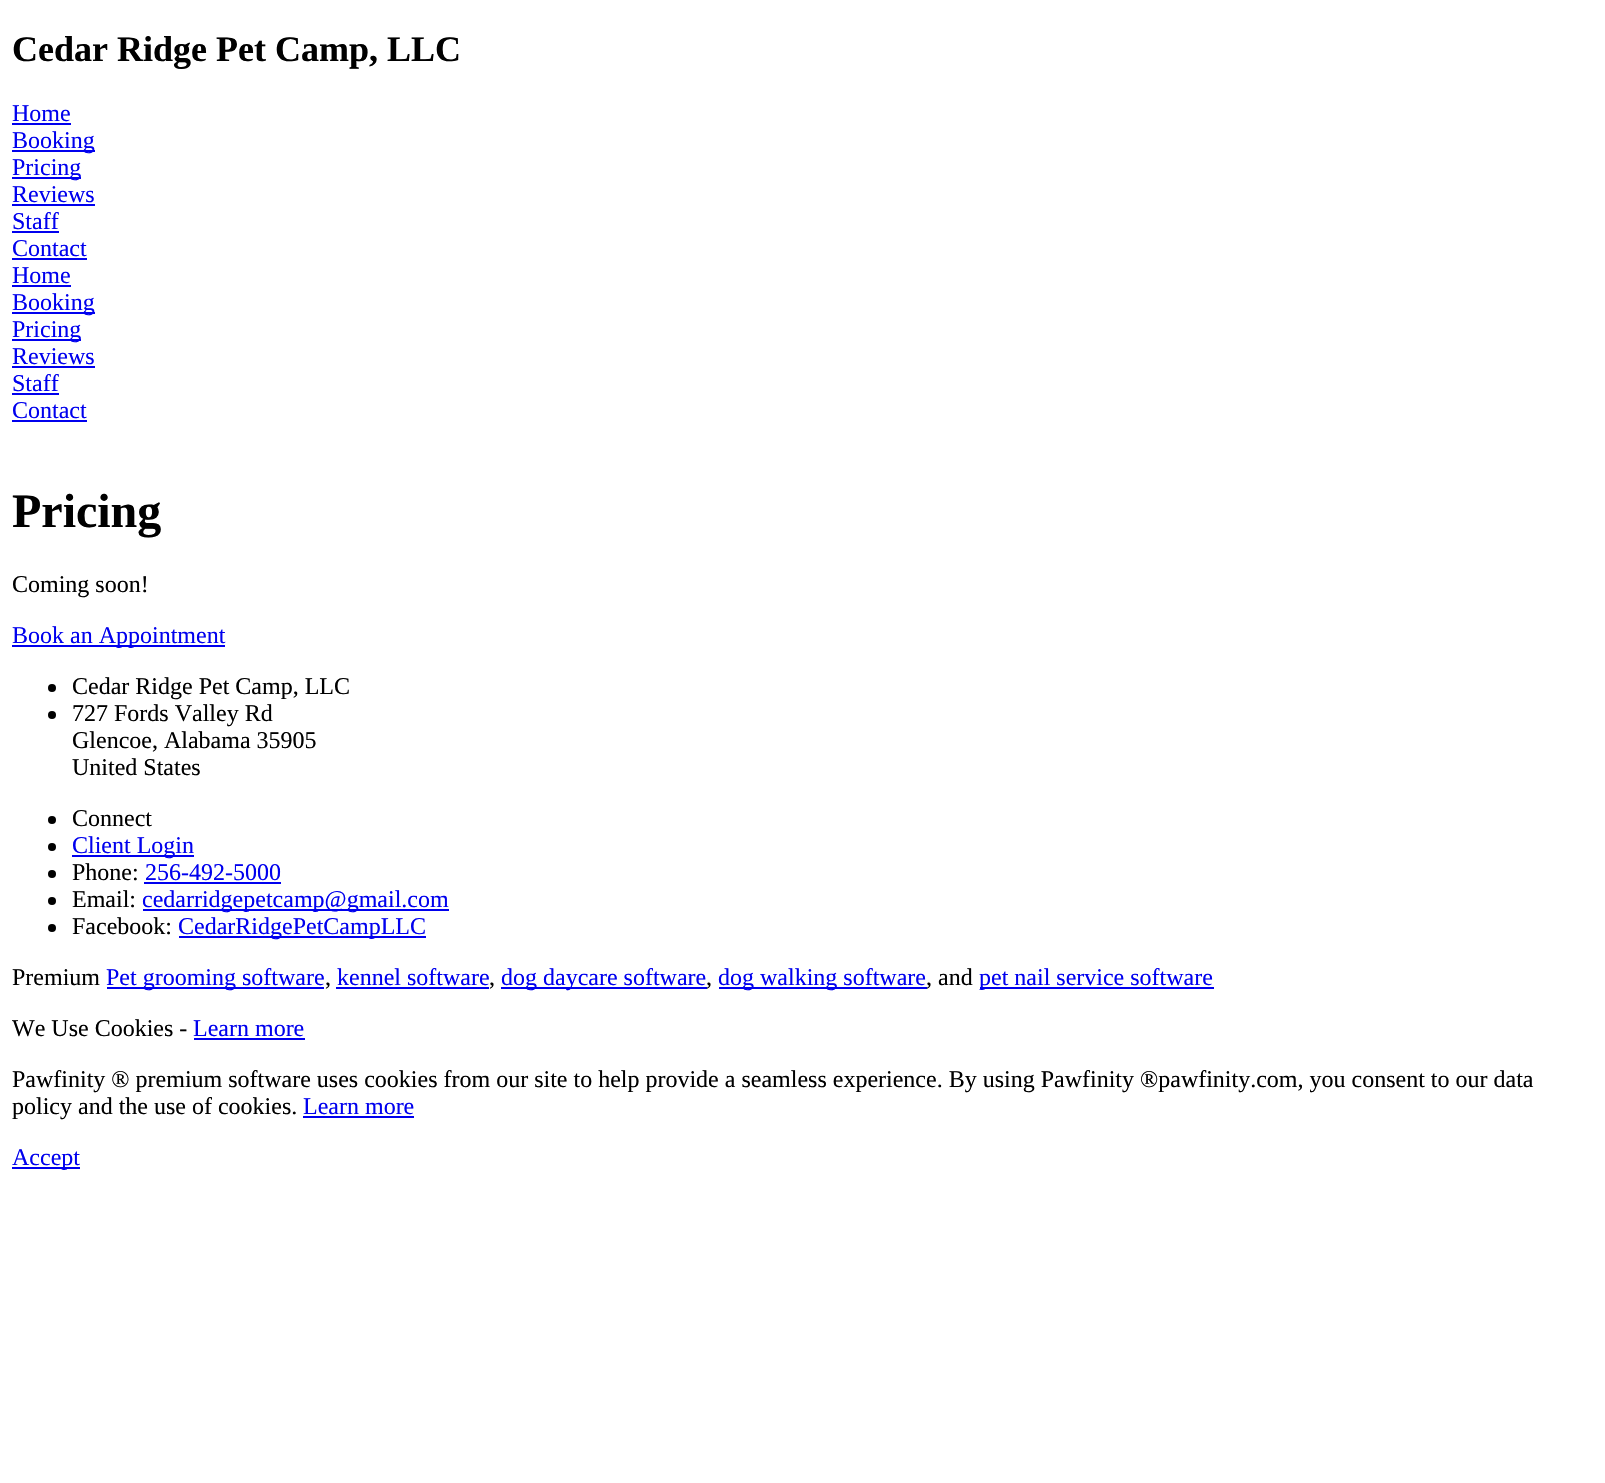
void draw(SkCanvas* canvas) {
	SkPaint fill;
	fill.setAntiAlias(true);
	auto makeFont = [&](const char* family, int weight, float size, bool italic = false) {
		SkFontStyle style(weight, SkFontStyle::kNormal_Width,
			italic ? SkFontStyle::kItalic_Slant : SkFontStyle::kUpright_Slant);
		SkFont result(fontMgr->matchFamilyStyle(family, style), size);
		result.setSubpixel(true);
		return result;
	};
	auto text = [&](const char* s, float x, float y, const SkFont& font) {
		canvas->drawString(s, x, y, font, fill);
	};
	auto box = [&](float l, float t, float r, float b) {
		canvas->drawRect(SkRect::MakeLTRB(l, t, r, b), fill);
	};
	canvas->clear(0xFFFFFFFF);
	fill.setColor(0xFF0000EE);
	box(12, 123, 71, 125);
	box(12, 150, 95, 152);
	box(12, 177, 81, 179);
	box(12, 204, 95, 206);
	box(12, 231, 59, 233);
	box(12, 258, 87, 260);
	box(12, 285, 71, 287);
	box(12, 312, 95, 314);
	box(12, 339, 81, 341);
	box(12, 366, 95, 368);
	box(12, 393, 59, 395);
	box(12, 420, 87, 422);
	box(12, 645, 225, 647);
	fill.setColor(0xFF000000);
	canvas->drawCircle(52, 688, 4, fill);
	canvas->drawCircle(52, 715, 4, fill);
	canvas->drawCircle(52, 820, 4, fill);
	canvas->drawCircle(52, 847, 4, fill);
	fill.setColor(0xFF0000EE);
	box(72, 855, 194, 857);
	fill.setColor(0xFF000000);
	canvas->drawCircle(52, 874, 4, fill);
	fill.setColor(0xFF0000EE);
	box(144, 882, 281, 884);
	fill.setColor(0xFF000000);
	canvas->drawCircle(52, 901, 4, fill);
	fill.setColor(0xFF0000EE);
	box(143, 909, 449, 911);
	fill.setColor(0xFF000000);
	canvas->drawCircle(52, 928, 4, fill);
	fill.setColor(0xFF0000EE);
	box(179, 936, 426, 938);
	box(107, 987, 324, 989);
	box(336, 987, 489, 989);
	box(501, 987, 707, 989);
	box(719, 987, 927, 989);
	box(980, 987, 1214, 989);
	box(194, 1038, 305, 1040);
	box(303, 1116, 414, 1118);
	box(12, 1167, 80, 1169);
	auto font1 = makeFont("Liberation Serif", 700, 36);
	fill.setColor(0xFF000000);
	text("Cedar Ridge Pet Camp, LLC", 12, 61, font1);
	auto font2 = makeFont("Liberation Serif", 400, 24);
	fill.setColor(0xFF0000EE);
	text("Home", 12, 121, font2);
	text("Booking", 12, 148, font2);
	text("Pricing", 12, 175, font2);
	text("Reviews", 12, 202, font2);
	text("Staff", 12, 229, font2);
	text("Contact", 12, 256, font2);
	text("Home", 12, 283, font2);
	text("Booking", 12, 310, font2);
	text("Pricing", 12, 337, font2);
	text("Reviews", 12, 364, font2);
	text("Staff", 12, 391, font2);
	text("Contact", 12, 418, font2);
	auto font3 = makeFont("Liberation Serif", 700, 48);
	fill.setColor(0xFF000000);
	text("Pricing", 12, 527, font3);
	text("Coming soon!", 12, 592, font2);
	fill.setColor(0xFF0000EE);
	text("Book an Appointment", 12, 643, font2);
	fill.setColor(0xFF000000);
	text("Cedar Ridge Pet Camp, LLC", 72, 694, font2);
	text("727 Fords Valley Rd", 72, 721, font2);
	text("Glencoe, Alabama 35905", 72, 748, font2);
	text("United States", 72, 775, font2);
	text("Connect", 72, 826, font2);
	fill.setColor(0xFF0000EE);
	text("Client Login", 72, 853, font2);
	fill.setColor(0xFF000000);
	text("Phone:", 72, 880, font2);
	fill.setColor(0xFF0000EE);
	text("256-492-5000", 145, 880, font2);
	fill.setColor(0xFF000000);
	text("Email:", 72, 907, font2);
	fill.setColor(0xFF0000EE);
	text("cedarridgepetcamp@gmail.com", 142, 907, font2);
	fill.setColor(0xFF000000);
	text("Facebook:", 72, 934, font2);
	fill.setColor(0xFF0000EE);
	text("CedarRidgePetCampLLC", 178, 934, font2);
	fill.setColor(0xFF000000);
	text("Premium", 12, 985, font2);
	fill.setColor(0xFF0000EE);
	text("Pet grooming software", 106, 985, font2);
	fill.setColor(0xFF000000);
	text(",", 325, 985, font2);
	fill.setColor(0xFF0000EE);
	text("kennel software", 337, 985, font2);
	fill.setColor(0xFF000000);
	text(",", 489, 985, font2);
	fill.setColor(0xFF0000EE);
	text("dog daycare software", 501, 985, font2);
	fill.setColor(0xFF000000);
	text(",", 706, 985, font2);
	fill.setColor(0xFF0000EE);
	text("dog walking software", 718, 985, font2);
	fill.setColor(0xFF000000);
	text(", and", 926, 985, font2);
	fill.setColor(0xFF0000EE);
	text("pet nail service software", 979, 985, font2);
	fill.setColor(0xFF000000);
	text("We Use Cookies -", 12, 1036, font2);
	fill.setColor(0xFF0000EE);
	text("Learn more", 193, 1036, font2);
	fill.setColor(0xFF000000);
	text("Pawfinity ® premium software uses cookies from our site to help provide a seamless experience. By using Pawfinity ®pawfinity.com, you consent to our data", 12, 1087, font2);
	text("policy and the use of cookies.", 12, 1114, font2);
	fill.setColor(0xFF0000EE);
	text("Learn more", 303, 1114, font2);
	text("Accept", 12, 1165, font2);
}
